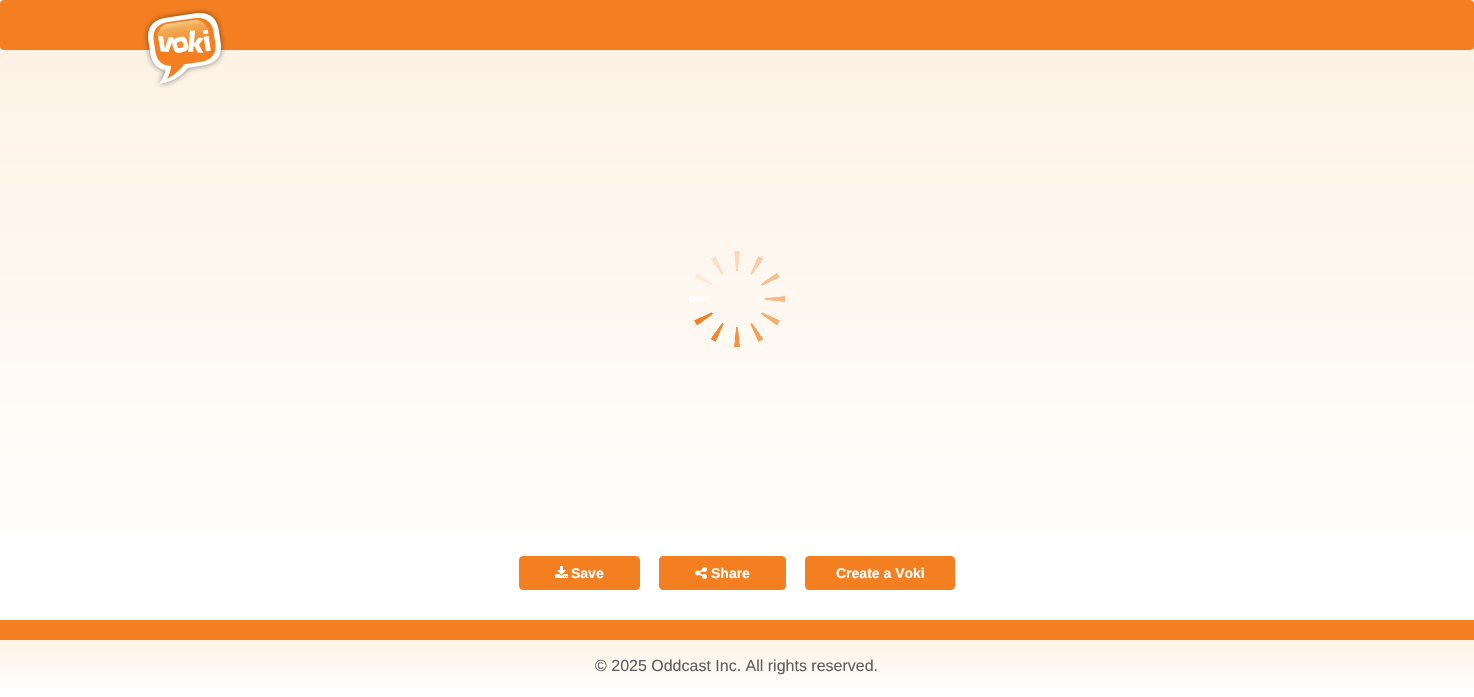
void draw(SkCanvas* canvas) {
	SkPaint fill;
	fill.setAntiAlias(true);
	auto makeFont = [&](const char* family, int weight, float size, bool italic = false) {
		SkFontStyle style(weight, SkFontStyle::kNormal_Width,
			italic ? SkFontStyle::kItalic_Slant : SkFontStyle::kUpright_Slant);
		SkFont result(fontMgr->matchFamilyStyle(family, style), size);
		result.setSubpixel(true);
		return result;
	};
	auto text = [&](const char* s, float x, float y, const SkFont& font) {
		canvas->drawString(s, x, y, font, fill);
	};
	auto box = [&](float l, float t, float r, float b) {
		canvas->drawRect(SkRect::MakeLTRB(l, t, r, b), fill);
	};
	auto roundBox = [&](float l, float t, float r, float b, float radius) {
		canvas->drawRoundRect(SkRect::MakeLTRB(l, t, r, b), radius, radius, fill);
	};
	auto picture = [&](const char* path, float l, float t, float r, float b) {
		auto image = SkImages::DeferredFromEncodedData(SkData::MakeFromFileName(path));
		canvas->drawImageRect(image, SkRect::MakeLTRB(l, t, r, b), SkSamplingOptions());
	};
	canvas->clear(0xFFFFFFFF);
	fill.setColor(0xFFF47F20);
	roundBox(0, 0, 1474, 50, 4);
	{
		const SkColor colors[] = {0xFFFEF2E5, 0xFFFFFFFF};
		const float stops[] = {0, 1};
		const SkPoint ends[] = {{737, 50}, {737, 590}};
		fill.setShader(SkGradientShader::MakeLinear(ends, colors, stops, 2, SkTileMode::kClamp));
		fill.setAlpha(255);
	}
	box(0, 50, 1474, 538);
	picture("image0.png", 143, 8, 226, 88);
	picture("image1.png", 689, 251, 785, 347);
	fill.setShader(nullptr);
	fill.setColor(0xFFF47F20);
	canvas->drawRoundRect(SkRect::MakeLTRB(519.5f, 556.5f, 639.5f, 589.5f), 3.5f, 3.5f, fill);
	fill.setStyle(SkPaint::kStroke_Style);
	fill.setStrokeWidth(1);
	canvas->drawRoundRect(SkRect::MakeLTRB(519.5f, 556.5f, 639.5f, 589.5f), 3.5f, 3.5f, fill);
	picture("image2.png", 555, 566, 568, 578);
	fill.setStyle(SkPaint::kFill_Style);
	canvas->drawRoundRect(SkRect::MakeLTRB(659.5f, 556.5f, 785.5f, 589.5f), 3.5f, 3.5f, fill);
	fill.setStyle(SkPaint::kStroke_Style);
	canvas->drawRoundRect(SkRect::MakeLTRB(659.5f, 556.5f, 785.5f, 589.5f), 3.5f, 3.5f, fill);
	picture("image3.png", 695, 567, 707, 579);
	fill.setStyle(SkPaint::kFill_Style);
	canvas->drawRoundRect(SkRect::MakeLTRB(805.5f, 556.5f, 954.5f, 589.5f), 3.5f, 3.5f, fill);
	fill.setStyle(SkPaint::kStroke_Style);
	canvas->drawRoundRect(SkRect::MakeLTRB(805.5f, 556.5f, 954.5f, 589.5f), 3.5f, 3.5f, fill);
	fill.setStyle(SkPaint::kFill_Style);
	box(0, 620, 1474, 640);
	{
		const SkColor colors[] = {0xFFFEF2E5, 0xFFFFFFFF};
		const float stops[] = {0, 1};
		const SkPoint ends[] = {{737, 640}, {737, 693}};
		fill.setShader(SkGradientShader::MakeLinear(ends, colors, stops, 2, SkTileMode::kClamp));
		fill.setAlpha(255);
	}
	box(0, 640, 1474, 688);
	auto font1 = makeFont("Liberation Sans", 700, 14);
	fill.setShader(nullptr);
	fill.setColor(0xFFFFFFFF);
	text("Save", 571, 578, font1);
	text("Share", 711, 578, font1);
	text("Create a Voki", 836, 578, font1);
	auto font2 = makeFont("Liberation Sans", 400, 16);
	fill.setColor(0xFF5E5E5E);
	text("© 2025 Oddcast Inc. All rights reserved.", 595, 671, font2);
}
